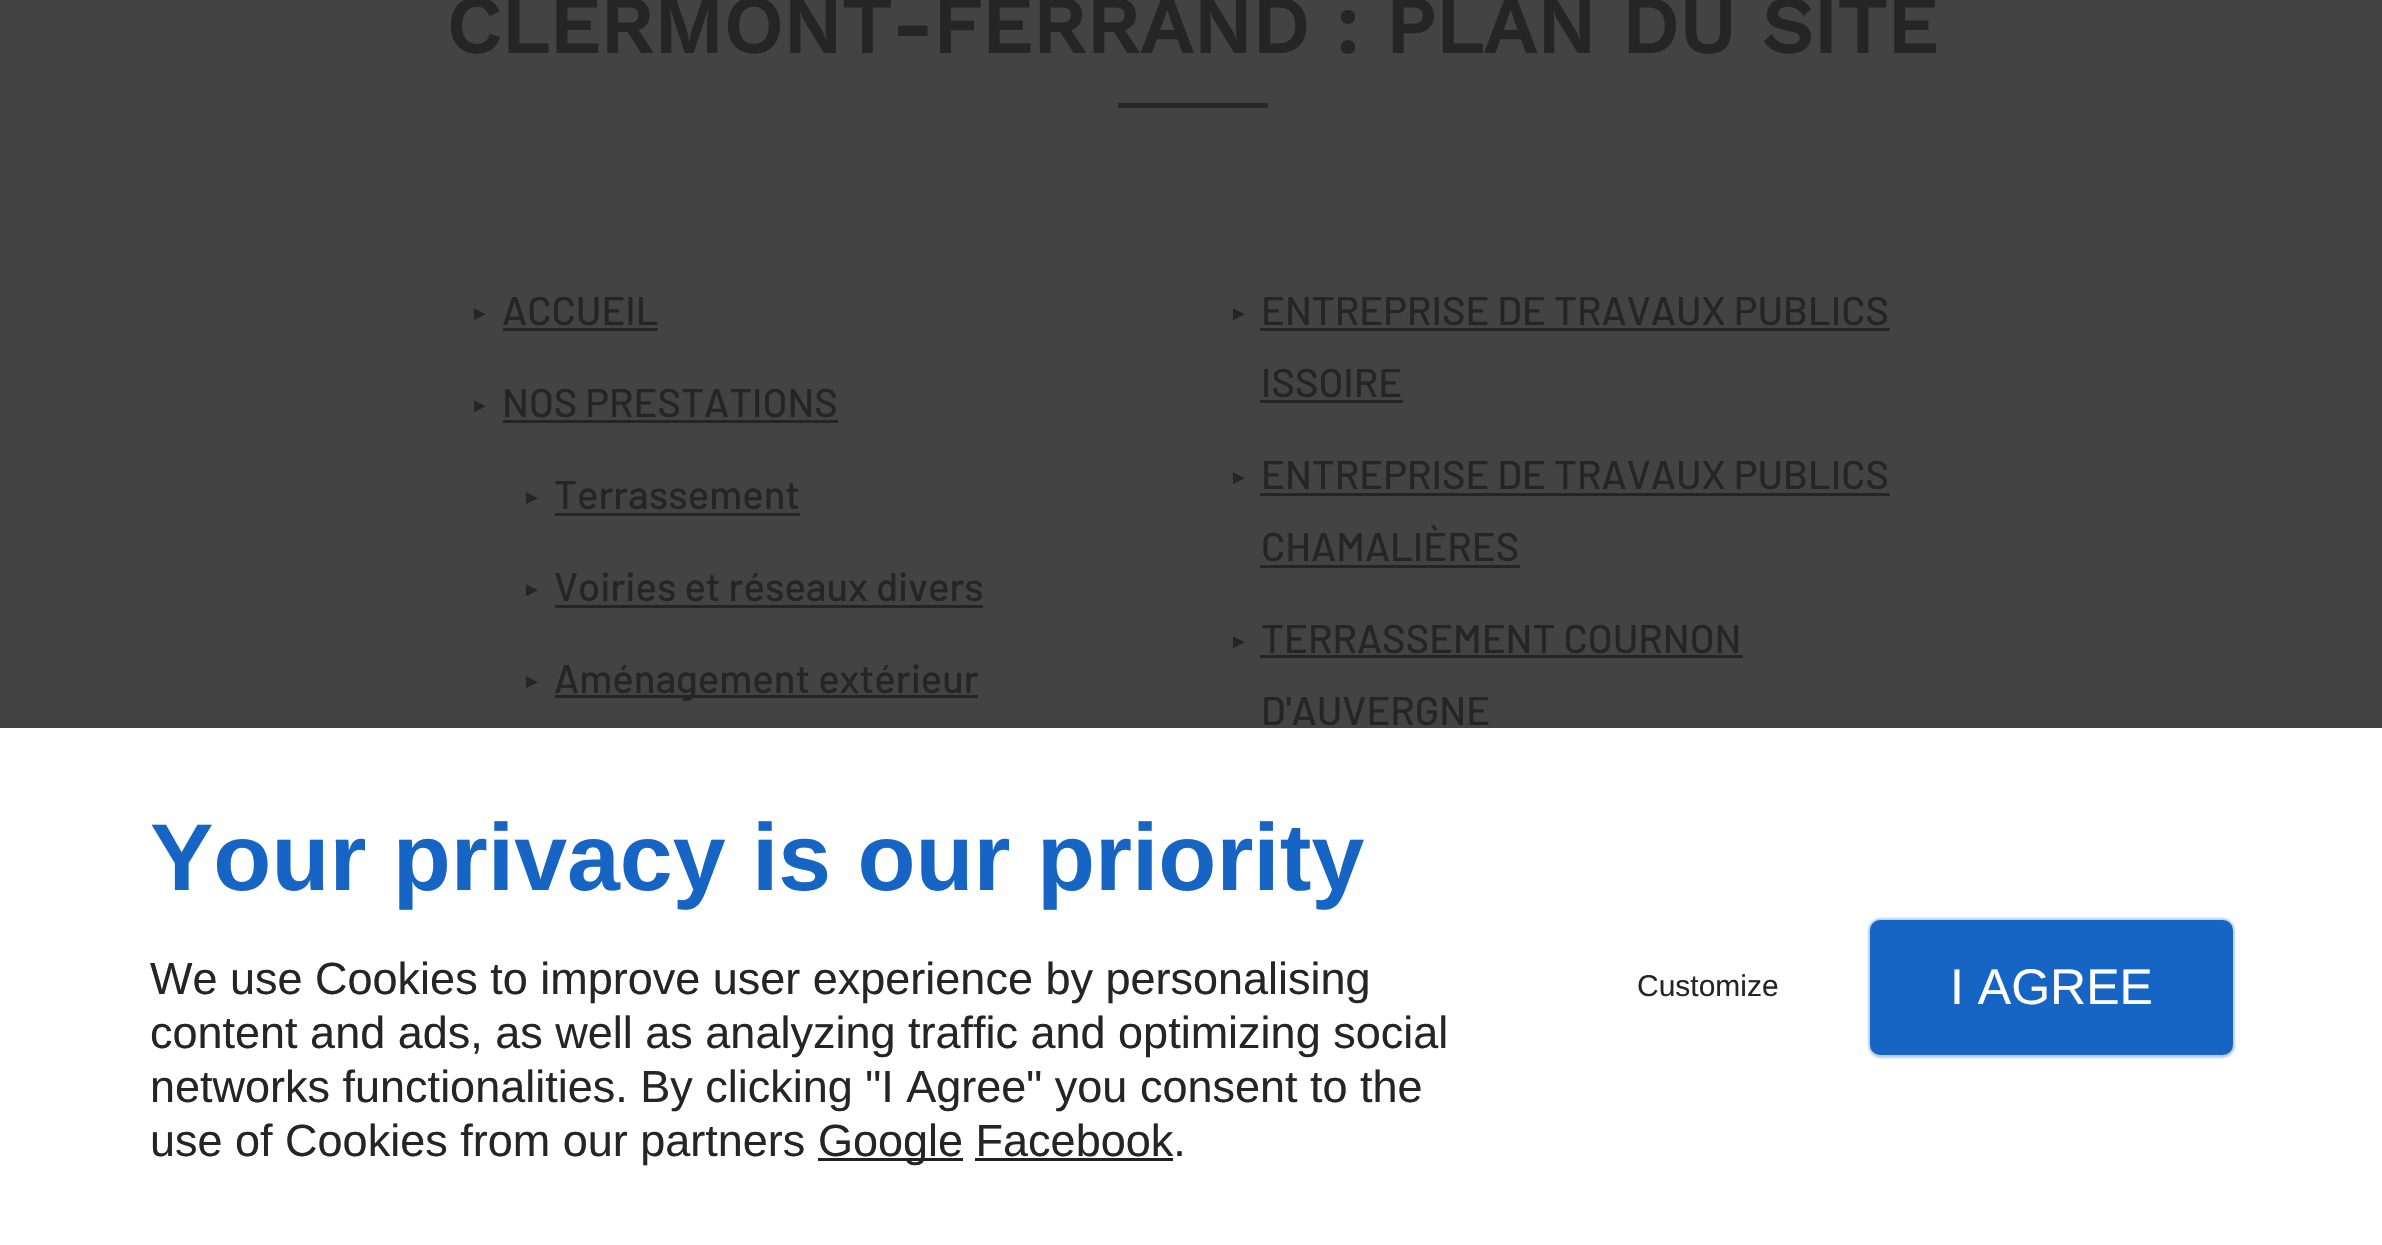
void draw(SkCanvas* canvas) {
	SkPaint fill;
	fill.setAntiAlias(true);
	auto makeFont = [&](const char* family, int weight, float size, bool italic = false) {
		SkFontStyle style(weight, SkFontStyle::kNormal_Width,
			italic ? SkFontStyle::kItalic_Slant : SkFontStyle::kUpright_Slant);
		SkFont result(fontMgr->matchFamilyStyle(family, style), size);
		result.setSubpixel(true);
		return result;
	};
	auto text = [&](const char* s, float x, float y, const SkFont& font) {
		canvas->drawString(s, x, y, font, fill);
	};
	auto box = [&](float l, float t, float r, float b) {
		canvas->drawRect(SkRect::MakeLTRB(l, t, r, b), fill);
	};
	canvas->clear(0xFF434343);
	fill.setColor(0xFF292928);
	box(1118, 103, 1268, 108);
	fill.setColor(0xFF252525);
	box(503, 328, 658, 331);
	box(1260, 328, 1890, 331);
	box(1260, 400, 1403, 403);
	box(503, 420, 838, 423);
	box(555, 513, 800, 516);
	box(555, 605, 983, 608);
	box(555, 695, 978, 698);
	box(1260, 493, 1890, 496);
	box(1260, 565, 1520, 568);
	box(1260, 655, 1743, 658);
	fill.setColor(0xFFFFFFFF);
	box(0, 728, 2382, 1245);
	fill.setColor(0xFF222222);
	box(818, 1158, 963, 1161);
	fill.setColor(0x4D1665C4);
	fill.setMaskFilter(SkMaskFilter::MakeBlur(kNormal_SkBlurStyle, 1));
	canvas->drawRoundRect(SkRect::MakeLTRB(1868, 918, 2235, 1058), 13, 13, fill);
	fill.setMaskFilter(nullptr);
	fill.setColor(0xFF1665C4);
	canvas->drawRoundRect(SkRect::MakeLTRB(1872.5f, 922.5f, 2230.5f, 1052.5f), 7.5f, 7.5f, fill);
	fill.setStyle(SkPaint::kStroke_Style);
	fill.setStrokeWidth(5);
	canvas->drawRoundRect(SkRect::MakeLTRB(1872.5f, 922.5f, 2230.5f, 1052.5f), 7.5f, 7.5f, fill);
	auto font1 = makeFont("Work Sans", 700, 80);
	fill.setStyle(SkPaint::kFill_Style);
	fill.setColor(0xFF252525);
	text("CLERMONT-FERRAND : PLAN DU SITE", 446, 53, font1);
	auto font2 = makeFont("Liberation Sans", 700, 20);
	text("►", 470, 320, font2);
	auto font3 = makeFont("Barlow", 500, 40);
	text("ACCUEIL", 502, 325, font3);
	text("►", 1229, 320, font2);
	text("ENTREPRISE DE TRAVAUX PUBLICS", 1261, 325, font3);
	text("ISSOIRE", 1261, 397, font3);
	text("►", 470, 412, font2);
	text("NOS PRESTATIONS", 502, 417, font3);
	text("►", 522, 504, font2);
	text("Terrassement", 554, 509, font3);
	text("►", 522, 596, font2);
	text("Voiries et réseaux divers", 554, 601, font3);
	text("►", 522, 688, font2);
	text("Aménagement extérieur", 554, 693, font3);
	text("►", 1229, 484, font2);
	text("ENTREPRISE DE TRAVAUX PUBLICS", 1261, 489, font3);
	text("CHAMALIÈRES", 1261, 561, font3);
	text("►", 1229, 648, font2);
	text("TERRASSEMENT COURNON", 1261, 653, font3);
	text("D'AUVERGNE", 1261, 725, font3);
	auto font4 = makeFont("Liberation Sans", 700, 95);
	fill.setColor(0xFF1665C4);
	text("Your privacy is our priority", 150, 890, font4);
	auto font5 = makeFont("Liberation Sans", 400, 45);
	fill.setColor(0xFF252525);
	text("We use Cookies to improve user experience by personalising", 150, 994, font5);
	text("content and ads, as well as analyzing traffic and optimizing social", 150, 1048, font5);
	text("networks functionalities. By clicking \"I Agree\" you consent to the", 150, 1102, font5);
	text("use of Cookies from our partners", 150, 1156, font5);
	text("Google Facebook.", 818, 1156, font5);
	fill.setColor(0xFF222222);
	box(975, 1158, 1173, 1161);
	auto font6 = makeFont("Liberation Sans", 400, 30);
	fill.setColor(0xFF252525);
	text("Customize", 1637, 996, font6);
	auto font7 = makeFont("Liberation Sans", 400, 50);
	fill.setColor(0xFFFFFFFF);
	text("I AGREE", 1950, 1004, font7);
}
